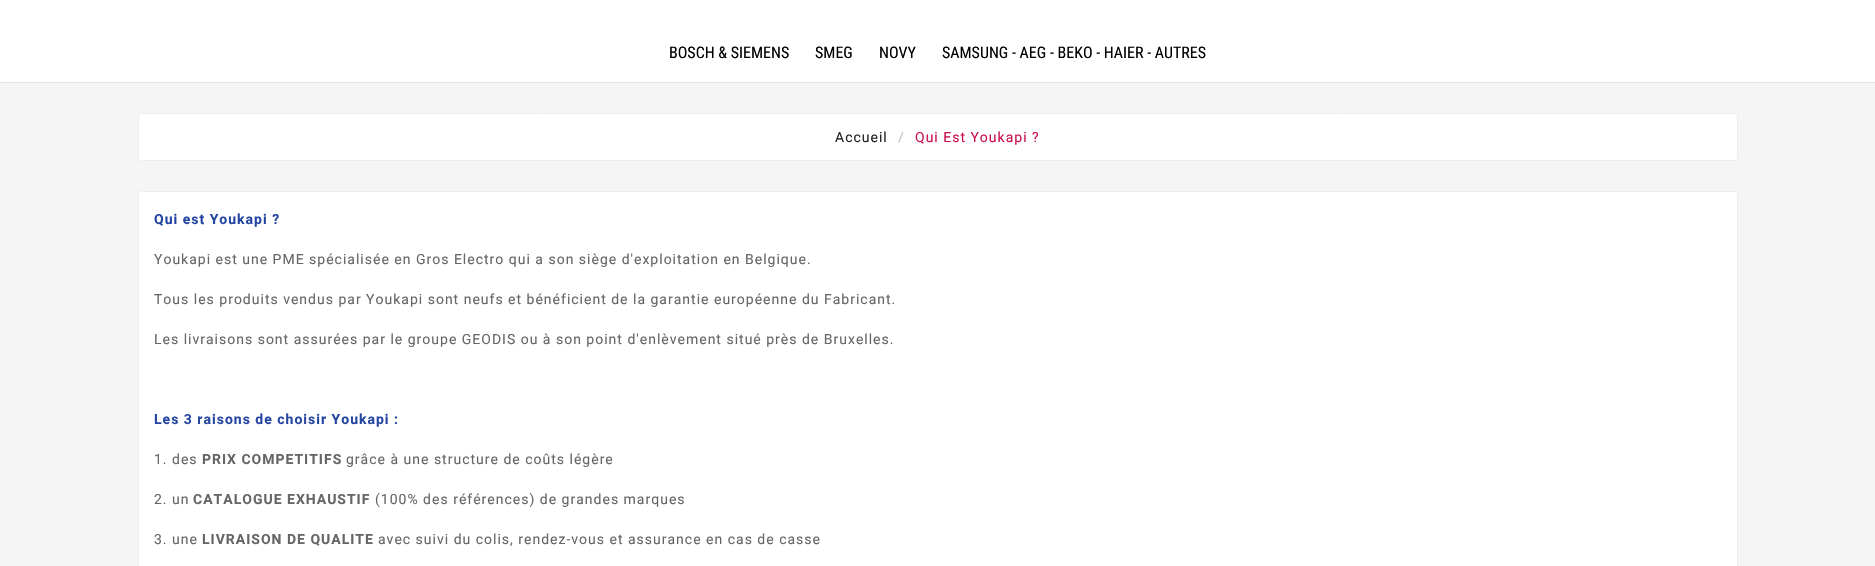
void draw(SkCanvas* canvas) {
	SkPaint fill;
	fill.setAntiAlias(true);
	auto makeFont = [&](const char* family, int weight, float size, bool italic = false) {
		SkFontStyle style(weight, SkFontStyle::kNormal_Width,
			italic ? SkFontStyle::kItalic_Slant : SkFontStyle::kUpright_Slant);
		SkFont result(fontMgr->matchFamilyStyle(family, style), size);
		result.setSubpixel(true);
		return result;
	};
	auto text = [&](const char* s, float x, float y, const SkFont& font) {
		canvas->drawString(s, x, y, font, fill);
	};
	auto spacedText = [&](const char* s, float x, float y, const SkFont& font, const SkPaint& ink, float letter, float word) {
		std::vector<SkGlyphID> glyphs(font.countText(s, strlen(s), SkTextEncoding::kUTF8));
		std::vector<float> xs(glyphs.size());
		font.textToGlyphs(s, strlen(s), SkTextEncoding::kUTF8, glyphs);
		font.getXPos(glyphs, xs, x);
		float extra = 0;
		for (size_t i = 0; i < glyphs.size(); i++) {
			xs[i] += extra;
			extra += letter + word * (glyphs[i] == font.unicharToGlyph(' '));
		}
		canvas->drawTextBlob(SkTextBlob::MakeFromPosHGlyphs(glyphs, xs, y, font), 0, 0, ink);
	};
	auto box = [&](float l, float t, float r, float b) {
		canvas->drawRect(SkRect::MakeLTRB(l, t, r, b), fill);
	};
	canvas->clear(0xFFF5F5F5);
	fill.setColor(0xFFFFFFFF);
	box(0, 0, 1875, 82);
	fill.setColor(0xFFE5E5E5);
	box(0, 82, 1875, 83);
	fill.setColor(0xFFFFFFFF);
	canvas->drawRoundRect(SkRect::MakeLTRB(138.5f, 113.5f, 1737.5f, 160.5f), 2.5f, 2.5f, fill);
	fill.setStyle(SkPaint::kStroke_Style);
	fill.setStrokeWidth(1);
	fill.setColor(0xFFEDEDED);
	canvas->drawRoundRect(SkRect::MakeLTRB(138.5f, 113.5f, 1737.5f, 160.5f), 2.5f, 2.5f, fill);
	fill.setStyle(SkPaint::kFill_Style);
	fill.setColor(0xFFFFFFFF);
	canvas->drawRoundRect(SkRect::MakeLTRB(138.5f, 191.5f, 1737.5f, 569.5f), 2.5f, 2.5f, fill);
	fill.setStyle(SkPaint::kStroke_Style);
	fill.setColor(0xFFEDEDED);
	canvas->drawRoundRect(SkRect::MakeLTRB(138.5f, 191.5f, 1737.5f, 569.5f), 2.5f, 2.5f, fill);
	auto font1 = makeFont("Roboto Condensed", 400, 16);
	fill.setStyle(SkPaint::kFill_Style);
	fill.setColor(0xFF000000);
	text("BOSCH & SIEMENS", 669, 58, font1);
	text("SMEG", 815, 58, font1);
	text("NOVY", 879, 58, font1);
	text("SAMSUNG - AEG - BEKO - HAIER - AUTRES", 942, 58, font1);
	auto font2 = makeFont("Roboto", 400, 14);
	fill.setColor(0xFF232323);
	spacedText("Accueil", 835, 142, font2, fill, 1, 0);
	fill.setColor(0xFFBDBDBD);
	spacedText("/", 898, 142, font2, fill, 1, 0);
	fill.setColor(0xFFCA114C);
	spacedText("Qui Est Youkapi ?", 915, 142, font2, fill, 1, 0);
	auto font3 = makeFont("Roboto", 700, 14);
	fill.setColor(0xFF2445A2);
	spacedText("Qui est Youkapi ?", 154, 224, font3, fill, 1, 0);
	fill.setColor(0xFF666666);
	spacedText("Youkapi est une PME spécialisée en Gros Electro qui a son siège d'exploitation en Belgique.", 154, 264, font2, fill, 1, 0);
	spacedText("Tous les produits vendus par Youkapi sont neufs et bénéficient de la garantie européenne du Fabricant.", 154, 304, font2, fill, 1, 0);
	spacedText("Les livraisons sont assurées par le groupe GEODIS ou à son point d'enlèvement situé près de Bruxelles.", 154, 344, font2, fill, 1, 0);
	fill.setColor(0xFF2445A2);
	spacedText("Les 3 raisons de choisir Youkapi :", 154, 424, font3, fill, 1, 0);
	fill.setColor(0xFF666666);
	spacedText("1. des", 154, 464, font2, fill, 1, 0);
	spacedText("PRIX COMPETITIFS", 202, 464, font3, fill, 1, 0);
	spacedText("grâce à une structure de coûts légère", 346, 464, font2, fill, 1, 0);
	spacedText("2. un", 154, 504, font2, fill, 1, 0);
	spacedText("CATALOGUE EXHAUSTIF", 193, 504, font3, fill, 1, 0);
	spacedText("(100% des références) de grandes marques", 375, 504, font2, fill, 1, 0);
	spacedText("3. une", 154, 544, font2, fill, 1, 0);
	spacedText("LIVRAISON DE QUALITE", 202, 544, font3, fill, 1, 0);
	spacedText("avec suivi du colis, rendez-vous et assurance en cas de casse", 378, 544, font2, fill, 1, 0);
}
